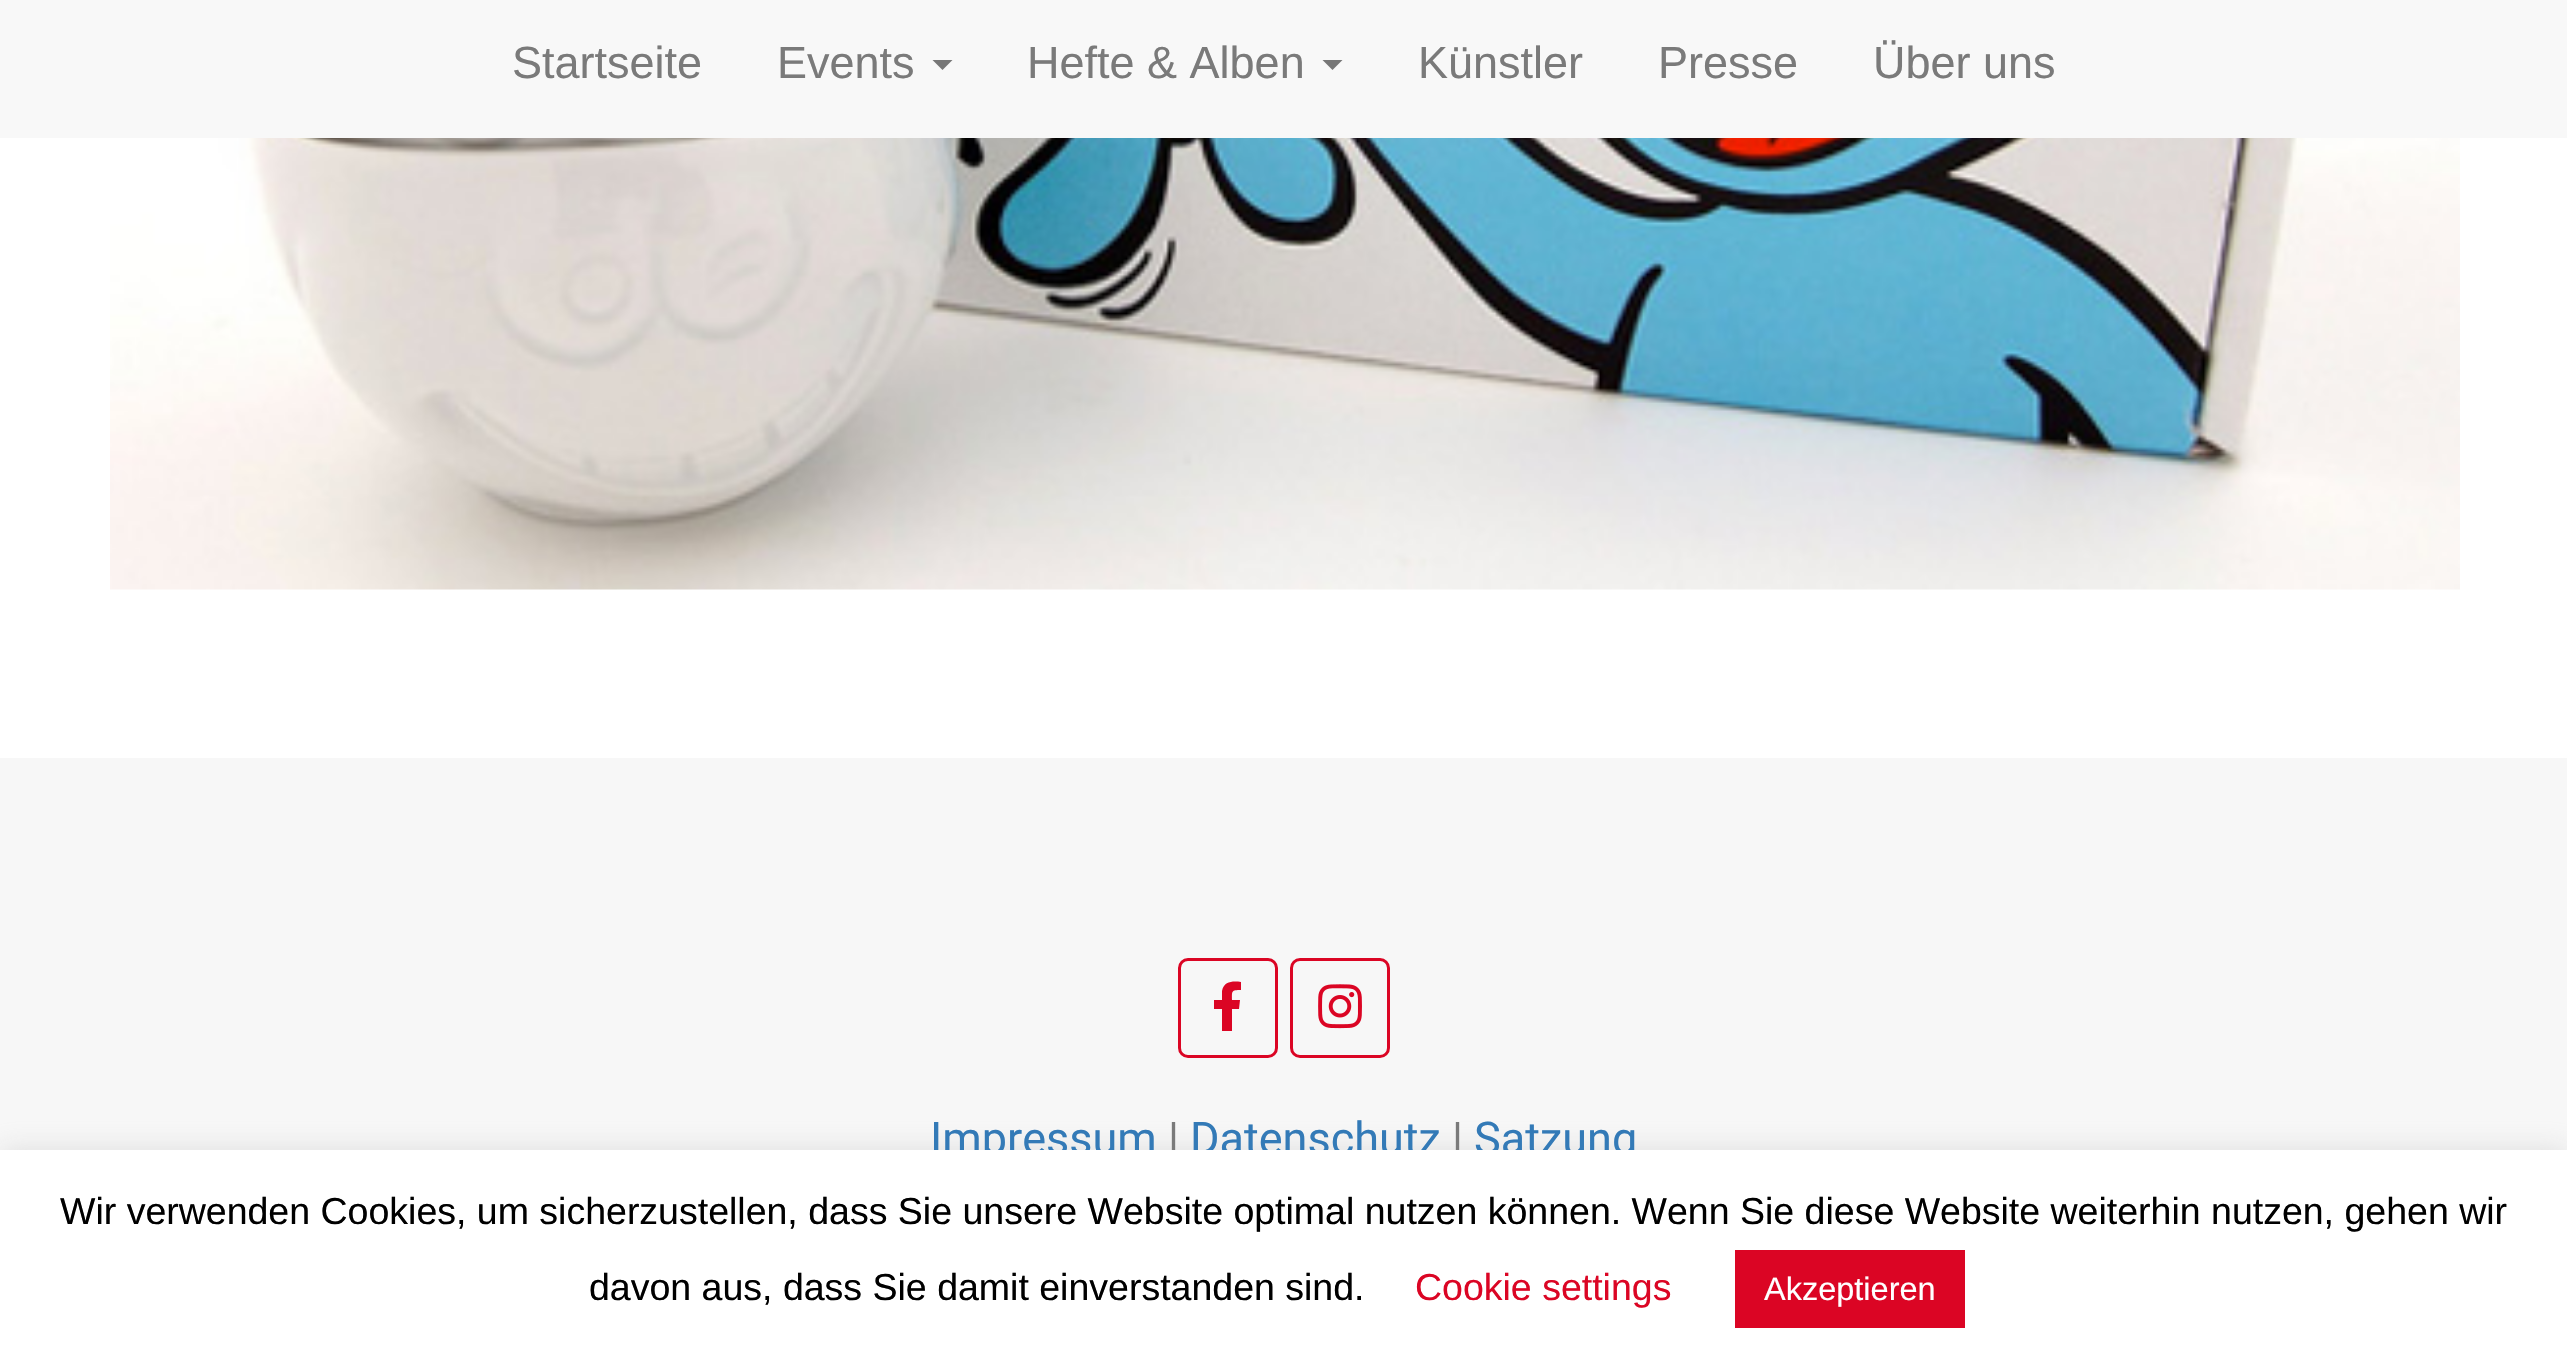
void draw(SkCanvas* canvas) {
	SkPaint fill;
	fill.setAntiAlias(true);
	auto makeFont = [&](const char* family, int weight, float size, bool italic = false) {
		SkFontStyle style(weight, SkFontStyle::kNormal_Width,
			italic ? SkFontStyle::kItalic_Slant : SkFontStyle::kUpright_Slant);
		SkFont result(fontMgr->matchFamilyStyle(family, style), size);
		result.setSubpixel(true);
		return result;
	};
	auto text = [&](const char* s, float x, float y, const SkFont& font) {
		canvas->drawString(s, x, y, font, fill);
	};
	auto box = [&](float l, float t, float r, float b) {
		canvas->drawRect(SkRect::MakeLTRB(l, t, r, b), fill);
	};
	auto picture = [&](const char* path, float l, float t, float r, float b) {
		auto image = SkImages::DeferredFromEncodedData(SkData::MakeFromFileName(path));
		canvas->drawImageRect(image, SkRect::MakeLTRB(l, t, r, b), SkSamplingOptions());
	};
	canvas->clear(0xFFFFFFFF);
	fill.setColor(0xFFF8F8F8);
	box(0, 0, 2567, 138);
	fill.setColor(0xFF777777);
	canvas->drawPath(SkPathBuilder().moveTo(932.5f, 60).lineTo(952.5f, 60).lineTo(942.5f, 70).close().detach(), fill);
	canvas->drawPath(SkPathBuilder().moveTo(1322.5f, 60).lineTo(1342.5f, 60).lineTo(1332.5f, 70).close().detach(), fill);
	picture("image0.png", 110, 138, 2460, 590);
	fill.setColor(0xFFF7F7F7);
	box(0, 758, 2567, 1150);
	fill.setStyle(SkPaint::kStroke_Style);
	fill.setStrokeWidth(3);
	fill.setColor(0xFFDB0524);
	canvas->drawRoundRect(SkRect::MakeLTRB(1179.5f, 959.5f, 1276.5f, 1056.5f), 8.5f, 8.5f, fill);
	fill.setStyle(SkPaint::kFill_Style);
	canvas->drawPath(SkPathBuilder().moveTo(1239, 1009).lineTo(1232, 1009).lineTo(1232, 1031).lineTo(1222, 1031).lineTo(1222, 1009).lineTo(1214, 1009).lineTo(1214, 1000).lineTo(1222, 1000).lineTo(1222, 991).cubicTo(1224, 981, 1233, 981, 1241, 982).lineTo(1241, 990).cubicTo(1231, 990, 1232, 991, 1232, 1000).lineTo(1240, 1000).close().detach(), fill);
	fill.setStyle(SkPaint::kStroke_Style);
	canvas->drawRoundRect(SkRect::MakeLTRB(1291.5f, 959.5f, 1388.5f, 1056.5f), 8.5f, 8.5f, fill);
	picture("image1.png", 1318, 984, 1362, 1029);
	fill.setStyle(SkPaint::kFill_Style);
	fill.setColor(0x4DACABAB);
	fill.setMaskFilter(SkMaskFilter::MakeBlur(kNormal_SkBlurStyle, 12.5f));
	canvas->drawRect(SkRect::MakeLTRB(0, 1148, 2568, 1368), fill);
	fill.setMaskFilter(nullptr);
	auto font1 = makeFont("Liberation Sans", 400, 45);
	fill.setColor(0xFF7A7A7A);
	text("Startseite", 512, 78, font1);
	text("Events", 777, 78, font1);
	text("Hefte & Alben", 1027, 78, font1);
	text("Künstler", 1418, 78, font1);
	text("Presse", 1658, 78, font1);
	text("Über uns", 1873, 78, font1);
	auto font2 = makeFont("Roboto", 400, 45);
	fill.setColor(0xFF337AB7);
	text("Impressum", 930, 1154, font2);
	fill.setColor(0xFF7A7A7A);
	text("|", 1168, 1154, font2);
	fill.setColor(0xFF337AB7);
	text("Datenschutz", 1190, 1154, font2);
	fill.setColor(0xFF7A7A7A);
	text("|", 1452, 1154, font2);
	fill.setColor(0xFF337AB7);
	text("Satzung", 1474, 1154, font2);
	fill.setColor(0xFFFFFFFF);
	box(0, 1150, 2567, 1370);
	auto font3 = makeFont("Liberation Sans", 400, 37.5f);
	fill.setColor(0xFF000000);
	text("Wir verwenden Cookies, um sicherzustellen, dass Sie unsere Website optimal nutzen können. Wenn Sie diese Website weiterhin nutzen, gehen wir", 60, 1224, font3);
	text("davon aus, dass Sie damit einverstanden sind.", 589, 1300, font3);
	fill.setColor(0xFFDB0524);
	text("Cookie settings", 1415, 1300, font3);
	box(1735, 1250, 1965, 1328);
	auto font4 = makeFont("Liberation Sans", 400, 32.5f);
	fill.setColor(0xFFFFFFFF);
	text("Akzeptieren", 1764, 1300, font4);
}
